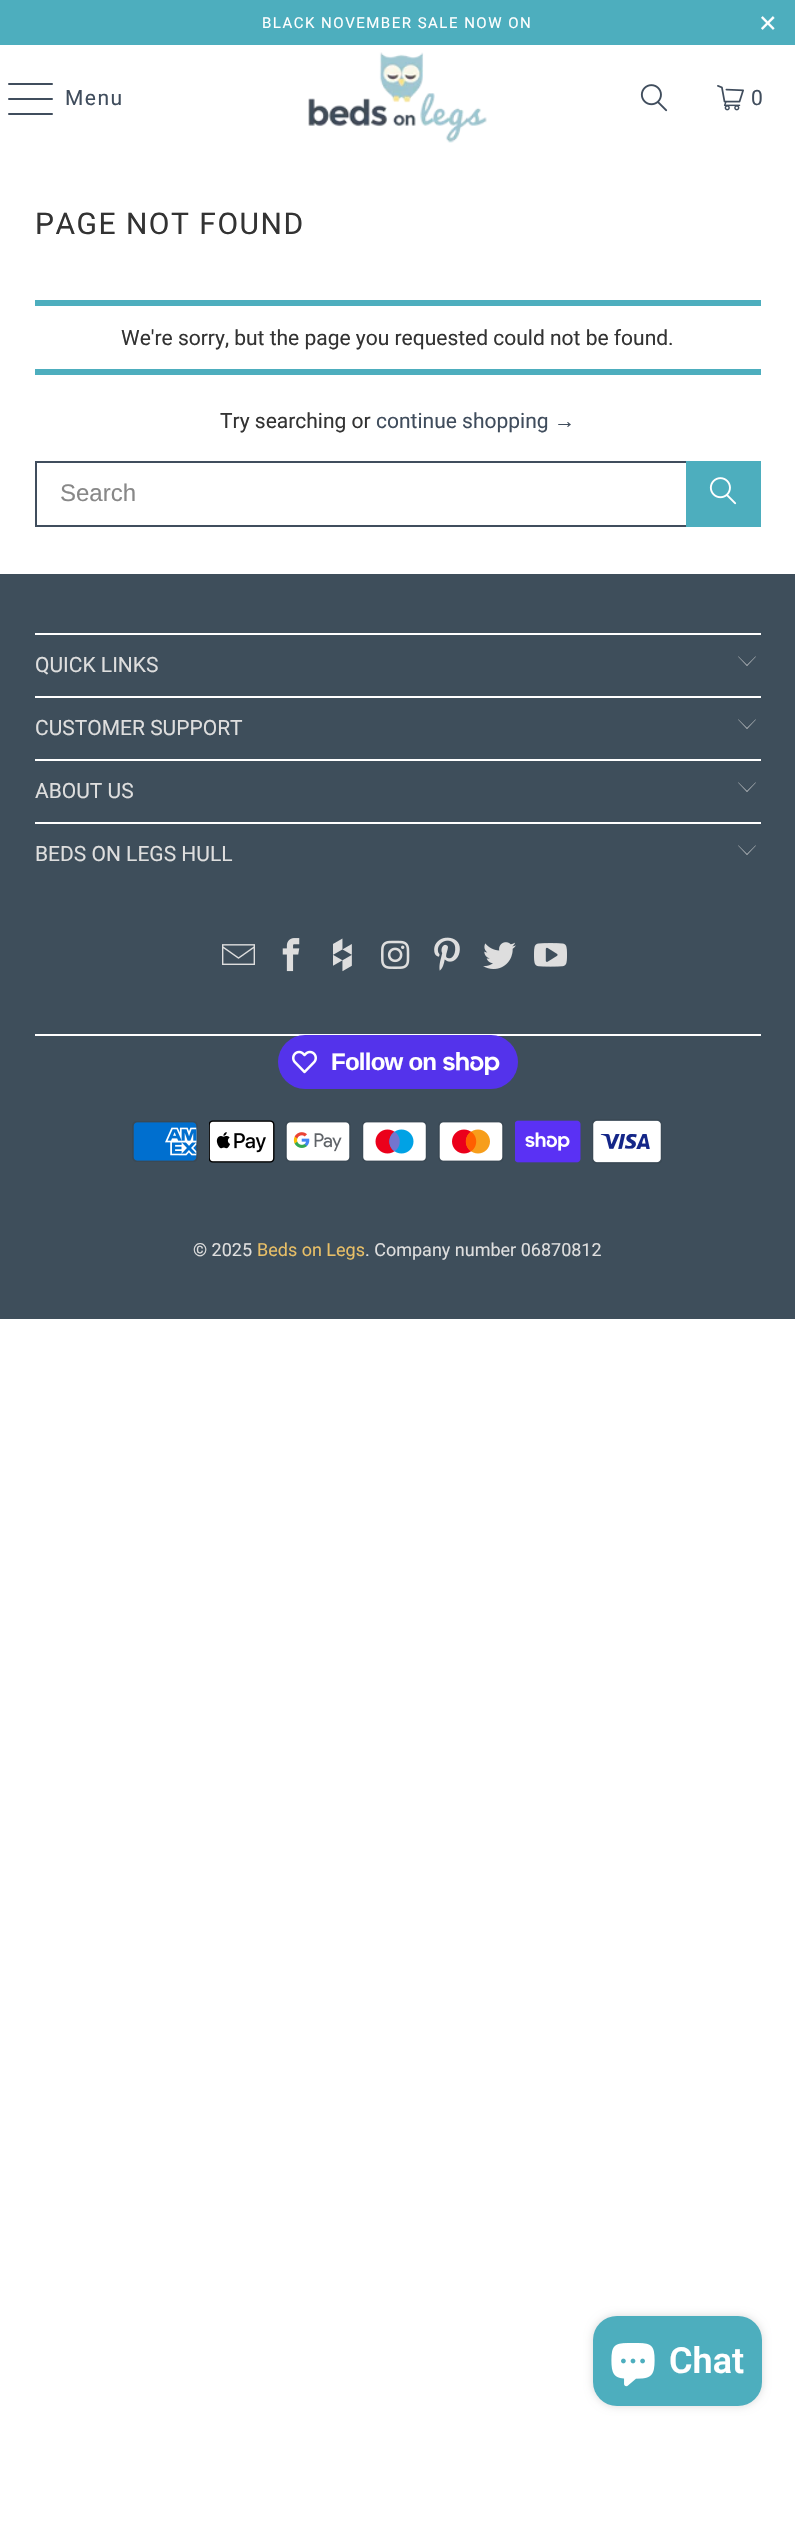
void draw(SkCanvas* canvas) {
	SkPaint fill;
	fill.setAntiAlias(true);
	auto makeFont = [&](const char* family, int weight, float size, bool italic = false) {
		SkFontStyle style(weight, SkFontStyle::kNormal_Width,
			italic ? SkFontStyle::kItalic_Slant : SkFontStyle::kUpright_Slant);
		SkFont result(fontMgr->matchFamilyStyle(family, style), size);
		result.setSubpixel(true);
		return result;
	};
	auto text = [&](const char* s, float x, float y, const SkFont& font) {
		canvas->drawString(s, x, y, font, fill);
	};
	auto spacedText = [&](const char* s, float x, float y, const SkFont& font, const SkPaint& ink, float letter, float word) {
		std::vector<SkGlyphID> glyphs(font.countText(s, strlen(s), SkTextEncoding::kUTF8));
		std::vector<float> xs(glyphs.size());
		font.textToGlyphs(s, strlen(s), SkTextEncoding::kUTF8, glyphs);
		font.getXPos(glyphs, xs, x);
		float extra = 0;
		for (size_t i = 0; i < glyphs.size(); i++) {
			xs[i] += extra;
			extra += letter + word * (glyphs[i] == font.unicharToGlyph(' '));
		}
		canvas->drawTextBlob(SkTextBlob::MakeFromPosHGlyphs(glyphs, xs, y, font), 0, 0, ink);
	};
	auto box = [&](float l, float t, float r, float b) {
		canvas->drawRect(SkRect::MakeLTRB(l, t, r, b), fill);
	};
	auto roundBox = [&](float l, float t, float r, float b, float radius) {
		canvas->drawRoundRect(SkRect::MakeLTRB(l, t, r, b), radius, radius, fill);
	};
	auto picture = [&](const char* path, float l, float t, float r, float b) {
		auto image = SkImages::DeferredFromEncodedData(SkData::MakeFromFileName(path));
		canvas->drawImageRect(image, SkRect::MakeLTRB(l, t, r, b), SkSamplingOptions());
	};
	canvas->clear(0xFFFFFFFF);
	fill.setColor(0xFF4DAEBE);
	box(0, 0, 795, 45);
	fill.setColor(0xFF404D5D);
	roundBox(8, 83, 53, 85, 1);
	roundBox(8, 98, 53, 100, 1);
	roundBox(8, 113, 53, 115, 1);
	picture("image0.png", 308, 52, 487, 143);
	picture("image1.png", 640, 84, 668, 112);
	picture("image2.png", 717, 85, 744, 111);
	fill.setColor(0xFF4DAEBE);
	box(35, 300, 761, 306);
	box(35, 369, 761, 375);
	fill.setStyle(SkPaint::kStroke_Style);
	fill.setStrokeWidth(2);
	fill.setColor(0xFF404D5D);
	canvas->drawRect(SkRect::MakeLTRB(36, 462, 760, 526), fill);
	fill.setStyle(SkPaint::kFill_Style);
	fill.setColor(0xFF4DAEBE);
	box(686, 461, 761, 527);
	picture("image3.png", 709, 477, 737, 505);
	fill.setColor(0xFF3E4E5B);
	box(0, 574, 795, 1319);
	fill.setColor(0xFFFFFFFF);
	box(35, 633, 761, 635);
	fill.setColor(0xFFDEDEDE);
	canvas->drawPath(SkPathBuilder().moveTo(747, 666).lineTo(738, 656.5f).lineTo(738.5f, 656.5f).lineTo(747, 665).lineTo(755.5f, 656.5f).lineTo(756, 656.5f).close().detach(), fill);
	fill.setColor(0xFFFFFFFF);
	box(35, 696, 761, 698);
	fill.setColor(0xFFDEDEDE);
	canvas->drawPath(SkPathBuilder().moveTo(747, 729).lineTo(738, 719.5f).lineTo(738.5f, 719.5f).lineTo(747, 728).lineTo(755.5f, 719.5f).lineTo(756, 719.5f).close().detach(), fill);
	fill.setColor(0xFFFFFFFF);
	box(35, 759, 761, 761);
	fill.setColor(0xFFDEDEDE);
	canvas->drawPath(SkPathBuilder().moveTo(747, 792).lineTo(738, 782.5f).lineTo(738.5f, 782.5f).lineTo(747, 791).lineTo(755.5f, 782.5f).lineTo(756, 782.5f).close().detach(), fill);
	fill.setColor(0xFFFFFFFF);
	box(35, 822, 761, 824);
	fill.setColor(0xFFDEDEDE);
	canvas->drawPath(SkPathBuilder().moveTo(747, 855).lineTo(738, 845.5f).lineTo(738.5f, 845.5f).lineTo(747, 854).lineTo(755.5f, 845.5f).lineTo(756, 845.5f).close().detach(), fill);
	picture("image4.png", 222, 944, 255, 965);
	picture("image5.png", 282, 938, 300, 972);
	picture("image6.png", 333, 938, 352, 972);
	picture("image7.png", 381, 940, 410, 969);
	picture("image8.png", 434, 937, 460, 971);
	picture("image9.png", 483, 942, 516, 969);
	picture("image10.png", 534, 943, 567, 967);
	fill.setColor(0xFFFFFFFF);
	box(35, 1034, 761, 1036);
	fill.setColor(0xFF5433EB);
	roundBox(278, 1035, 518, 1089, 27);
	picture("image11.png", 292, 1050, 317, 1074);
	picture("image12.png", 443, 1052, 500, 1075);
	picture("image13.png", 132, 1121, 198, 1162);
	picture("image14.png", 209, 1120, 275, 1163);
	picture("image15.png", 285, 1121, 351, 1162);
	picture("image16.png", 362, 1121, 427, 1162);
	picture("image17.png", 438, 1121, 504, 1162);
	picture("image18.png", 515, 1120, 581, 1163);
	picture("image19.png", 592, 1119, 662, 1164);
	fill.setColor(0x26000000);
	fill.setMaskFilter(SkMaskFilter::MakeBlur(kNormal_SkBlurStyle, 4));
	canvas->drawRoundRect(SkRect::MakeLTRB(593, 2316, 762, 2406), 24, 24, fill);
	fill.setMaskFilter(nullptr);
	fill.setColor(0xFF4DAEBE);
	roundBox(593, 2316, 762, 2406, 24);
	picture("image20.png", 611, 2343, 655, 2387);
	auto font1 = makeFont("Roboto", 400, 15);
	fill.setColor(0xFFFFFFFF);
	spacedText("BLACK NOVEMBER SALE NOW ON", 262, 28, font1, fill, 1.5f, 0);
	auto font2 = makeFont("Liberation Sans", 400, 30);
	spacedText("×", 759, 33, font2, fill, 1.5f, 0);
	auto font3 = makeFont("Roboto", 400, 21);
	fill.setColor(0xFF404D5D);
	spacedText("Menu", 65, 105, font3, fill, 1.5f, 0);
	spacedText("0", 751, 105, font3, fill, 1.5f, 0);
	auto font4 = makeFont("Roboto", 400, 30);
	fill.setColor(0xFF333333);
	spacedText("PAGE NOT FOUND", 35, 234, font4, fill, 1.5f, 0);
	text("We're sorry, but the page you requested could not be found.", 121, 345, font3);
	text("Try searching or", 220, 428, font3);
	fill.setColor(0xFF404D5D);
	text("continue shopping", 376, 428, font3);
	auto font5 = makeFont("Liberation Sans", 400, 21);
	text("→", 554, 428, font5);
	auto font6 = makeFont("Liberation Sans", 400, 24);
	fill.setColor(0xFF888888);
	text("Search", 60, 501, font6);
	fill.setColor(0xFFDEDEDE);
	text("QUICK LINKS", 35, 672, font3);
	text("CUSTOMER SUPPORT", 35, 735, font3);
	text("ABOUT US", 35, 798, font3);
	text("BEDS ON LEGS HULL", 35, 861, font3);
	auto font7 = makeFont("Liberation Sans", 700, 24);
	fill.setColor(0xFFFFFFFF);
	spacedText("Follow on", 331, 1070, font7, fill, -0.75f, 0);
	auto font8 = makeFont("Roboto", 400, 18);
	fill.setColor(0xFFDEDEDE);
	text("© 2025", 193, 1256, font8);
	fill.setColor(0xFFE8BF67);
	text("Beds on Legs", 257, 1256, font8);
	fill.setColor(0xFFDEDEDE);
	text(". Company number 06870812", 365, 1256, font8);
	auto font9 = makeFont("Roboto", 600, 36);
	fill.setColor(0xFFFFFFFF);
	text("Chat", 669, 2373, font9);
}
